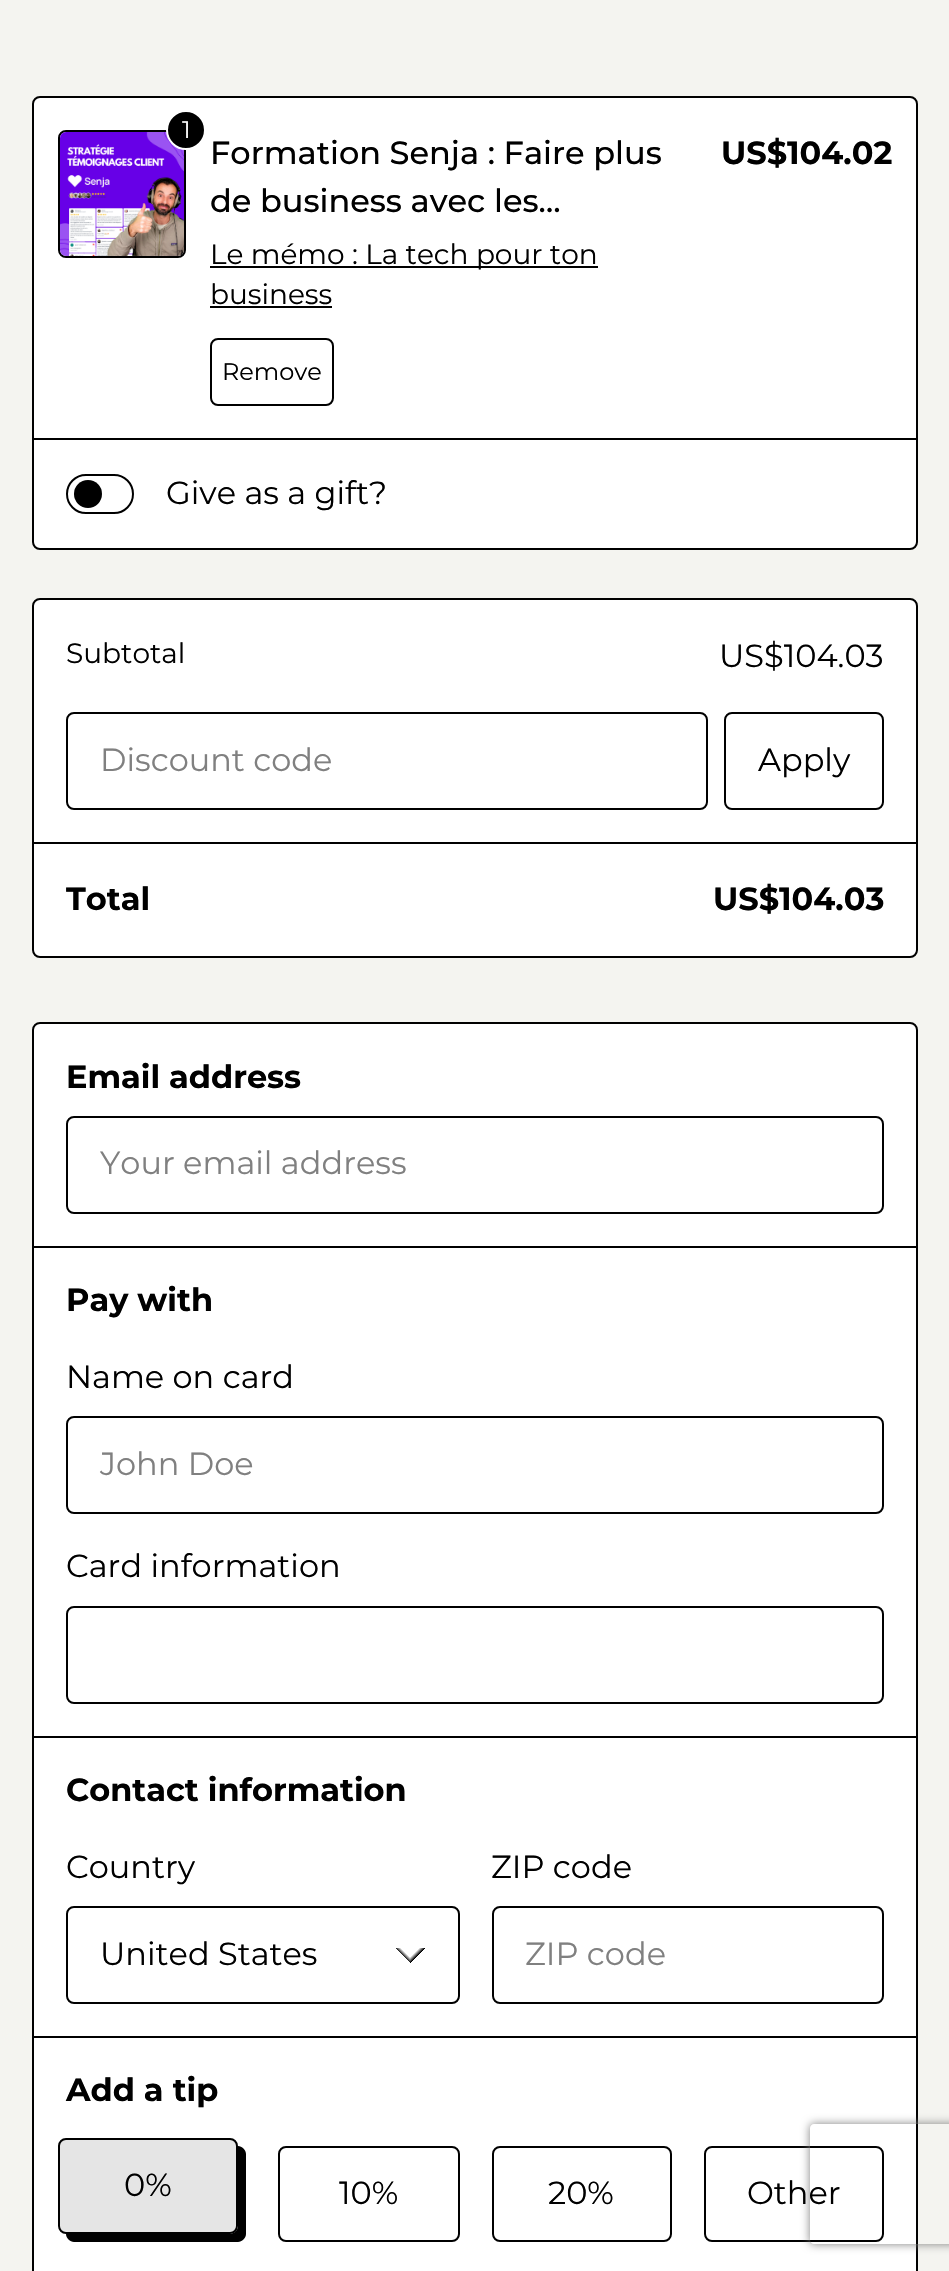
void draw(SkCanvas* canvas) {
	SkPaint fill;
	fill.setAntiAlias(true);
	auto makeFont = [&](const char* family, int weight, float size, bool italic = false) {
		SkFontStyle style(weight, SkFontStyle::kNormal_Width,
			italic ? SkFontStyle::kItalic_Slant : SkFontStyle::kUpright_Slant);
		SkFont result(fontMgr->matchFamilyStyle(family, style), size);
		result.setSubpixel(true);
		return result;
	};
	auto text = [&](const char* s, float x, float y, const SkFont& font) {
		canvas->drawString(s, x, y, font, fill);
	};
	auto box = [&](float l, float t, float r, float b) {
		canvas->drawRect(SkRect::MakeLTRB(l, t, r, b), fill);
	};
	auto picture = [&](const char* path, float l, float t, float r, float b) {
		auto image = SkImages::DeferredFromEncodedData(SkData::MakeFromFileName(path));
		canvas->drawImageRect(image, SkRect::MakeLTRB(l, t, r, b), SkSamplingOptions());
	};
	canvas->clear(0xFFF4F4F0);
	fill.setColor(0xFFFFFFFF);
	canvas->drawRoundRect(SkRect::MakeLTRB(33, 97, 917, 549), 7, 7, fill);
	fill.setStyle(SkPaint::kStroke_Style);
	fill.setStrokeWidth(2);
	fill.setColor(0xFF000000);
	canvas->drawRoundRect(SkRect::MakeLTRB(33, 97, 917, 549), 7, 7, fill);
	canvas->drawRoundRect(SkRect::MakeLTRB(59, 131, 185, 257), 7, 7, fill);
	picture("image0.png", 60, 132, 184, 256);
	fill.setStyle(SkPaint::kFill_Style);
	canvas->drawCircle(186, 130, 19, fill);
	fill.setStyle(SkPaint::kStroke_Style);
	fill.setColor(0xFFFFFFFF);
	canvas->drawCircle(186, 130, 19, fill);
	fill.setStyle(SkPaint::kFill_Style);
	fill.setColor(0xFF000000);
	box(210, 266, 598, 268);
	box(210, 306, 332, 308);
	fill.setStyle(SkPaint::kStroke_Style);
	canvas->drawRoundRect(SkRect::MakeLTRB(211, 339, 333, 405), 7, 7, fill);
	fill.setStyle(SkPaint::kFill_Style);
	box(34, 438, 916, 440);
	fill.setStyle(SkPaint::kStroke_Style);
	canvas->drawRoundRect(SkRect::MakeLTRB(67, 475, 133, 513), 19, 19, fill);
	fill.setStyle(SkPaint::kFill_Style);
	canvas->drawCircle(88, 494, 14, fill);
	fill.setColor(0xFFFFFFFF);
	canvas->drawRoundRect(SkRect::MakeLTRB(33, 599, 917, 957), 7, 7, fill);
	fill.setStyle(SkPaint::kStroke_Style);
	fill.setColor(0xFF000000);
	canvas->drawRoundRect(SkRect::MakeLTRB(33, 599, 917, 957), 7, 7, fill);
	canvas->drawRoundRect(SkRect::MakeLTRB(67, 713, 707, 809), 7, 7, fill);
	canvas->drawRoundRect(SkRect::MakeLTRB(725, 713, 883, 809), 7, 7, fill);
	fill.setStyle(SkPaint::kFill_Style);
	box(34, 842, 916, 844);
	fill.setColor(0xFFFFFFFF);
	canvas->drawPath(SkPathBuilder().moveTo(40, 1022).lineTo(910, 1022).cubicTo(914.5f, 1022, 918, 1025.5f, 918, 1030).lineTo(918, 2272).lineTo(32, 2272).lineTo(32, 1030).cubicTo(32, 1025.5f, 35.5f, 1022, 40, 1022).close().detach(), fill);
	fill.setStyle(SkPaint::kStroke_Style);
	fill.setColor(0xFF000000);
	canvas->drawRoundRect(SkRect::MakeLTRB(33, 1023, 917, 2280), 7, 7, fill);
	canvas->drawRoundRect(SkRect::MakeLTRB(67, 1117, 883, 1213), 7, 7, fill);
	fill.setStyle(SkPaint::kFill_Style);
	box(34, 1246, 916, 1248);
	fill.setStyle(SkPaint::kStroke_Style);
	canvas->drawRoundRect(SkRect::MakeLTRB(67, 1417, 883, 1513), 7, 7, fill);
	canvas->drawRoundRect(SkRect::MakeLTRB(67, 1607, 883, 1703), 7, 7, fill);
	fill.setStyle(SkPaint::kFill_Style);
	box(34, 1736, 916, 1738);
	{
		const SkColor colors[] = {0xFFFFFFFF, 0xFF000000, 0xFFFFFFFF};
		const float stops[] = {0.5f, 0.5f, 0.68f};
		const SkPoint ends[] = {{426, 1963}, {410, 1947}};
		fill.setShader(SkGradientShader::MakeLinear(ends, colors, stops, 3, SkTileMode::kClamp));
		fill.setAlpha(255);
	}
	box(410, 1948, 425, 1963);
	{
		const SkColor colors[] = {0xFFFFFFFF, 0xFF000000, 0xFFFFFFFF};
		const float stops[] = {0.5f, 0.5f, 0.68f};
		const SkPoint ends[] = {{394, 1963}, {410, 1947}};
		fill.setShader(SkGradientShader::MakeLinear(ends, colors, stops, 3, SkTileMode::kClamp));
		fill.setAlpha(255);
	}
	box(395, 1948, 410, 1963);
	fill.setStyle(SkPaint::kStroke_Style);
	fill.setShader(nullptr);
	fill.setColor(0xFF000000);
	canvas->drawRoundRect(SkRect::MakeLTRB(67, 1907, 459, 2003), 7, 7, fill);
	canvas->drawRoundRect(SkRect::MakeLTRB(493, 1907, 883, 2003), 7, 7, fill);
	fill.setStyle(SkPaint::kFill_Style);
	box(34, 2036, 916, 2038);
	canvas->drawPath(SkPathBuilder().moveTo(66, 2234).cubicTo(66, 2238, 70, 2242, 74, 2242).lineTo(238, 2242).cubicTo(242, 2242, 246, 2238, 246, 2234).lineTo(246, 2154).cubicTo(246, 2150, 242, 2146, 238, 2146).lineTo(238, 2226).cubicTo(238, 2230, 234, 2234, 230, 2234).close().detach(), fill);
	fill.setColor(0x1A000000);
	canvas->drawRoundRect(SkRect::MakeLTRB(59, 2139, 237, 2233), 7, 7, fill);
	fill.setStyle(SkPaint::kStroke_Style);
	fill.setColor(0xFF000000);
	canvas->drawRoundRect(SkRect::MakeLTRB(59, 2139, 237, 2233), 7, 7, fill);
	canvas->drawRoundRect(SkRect::MakeLTRB(279, 2147, 459, 2241), 7, 7, fill);
	canvas->drawRoundRect(SkRect::MakeLTRB(493, 2147, 671, 2241), 7, 7, fill);
	canvas->drawRoundRect(SkRect::MakeLTRB(705, 2147, 883, 2241), 7, 7, fill);
	canvas->save();
	canvas->clipPath(SkPathBuilder(SkPathFillType::kEvenOdd).moveTo(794, 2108).lineTo(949, 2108).lineTo(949, 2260).lineTo(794, 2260).close().moveTo(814, 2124).lineTo(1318, 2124).cubicTo(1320, 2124, 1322, 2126, 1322, 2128).lineTo(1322, 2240).cubicTo(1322, 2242, 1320, 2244, 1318, 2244).lineTo(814, 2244).cubicTo(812, 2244, 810, 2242, 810, 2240).lineTo(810, 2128).cubicTo(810, 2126, 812, 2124, 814, 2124).close().detach(), true);
	fill.setStyle(SkPaint::kFill_Style);
	fill.setColor(0xFF808080);
	fill.setMaskFilter(SkMaskFilter::MakeBlur(kNormal_SkBlurStyle, 5));
	canvas->drawRoundRect(SkRect::MakeLTRB(810, 2124, 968, 2244), 4, 4, fill);
	fill.setMaskFilter(nullptr);
	canvas->restore();
	auto font1 = makeFont("Montserrat", 400, 24);
	fill.setColor(0xFFFFFFFF);
	text("1", 182, 138, font1);
	auto font2 = makeFont("Montserrat", 500, 32);
	fill.setColor(0xFF000000);
	text("Formation Senja : Faire plus", 210, 164, font2);
	text("de business avec les…", 210, 212, font2);
	auto font3 = makeFont("Montserrat", 400, 28);
	text("Le mémo : La tech pour ton", 210, 264, font3);
	text("business", 210, 304, font3);
	text("Remove", 222, 380, font1);
	auto font4 = makeFont("Montserrat", 700, 32);
	text("US$104.02", 721, 164, font4);
	auto font5 = makeFont("Montserrat", 400, 32);
	text("Give as a gift?", 166, 504, font5);
	text("Subtotal", 66, 663, font3);
	text("US$104.03", 719, 667, font5);
	fill.setColor(0xFF808080);
	text("Discount code", 100, 771, font5);
	fill.setColor(0xFF000000);
	text("Apply", 758, 771, font5);
	text("Total", 66, 910, font4);
	text("US$104.03", 713, 910, font4);
	text("Email address", 66, 1088, font4);
	fill.setColor(0xFF808080);
	text("Your email address", 100, 1174, font5);
	fill.setColor(0xFF000000);
	text("Pay with", 66, 1311, font4);
	text("Name on card", 66, 1388, font5);
	fill.setColor(0xFF808080);
	text("John Doe", 100, 1475, font5);
	fill.setColor(0xFF000000);
	text("Card information", 66, 1577, font5);
	text("Contact information", 66, 1801, font4);
	text("Country", 66, 1878, font5);
	text("United States", 100, 1965, font5);
	text("ZIP code", 491, 1878, font5);
	fill.setColor(0xFF808080);
	text("ZIP code", 525, 1965, font5);
	fill.setColor(0xFF000000);
	text("Add a tip", 66, 2101, font4);
	text("0%", 124, 2196, font5);
	text("10%", 339, 2204, font5);
	text("20%", 548, 2204, font5);
	text("Other", 747, 2204, font5);
}
